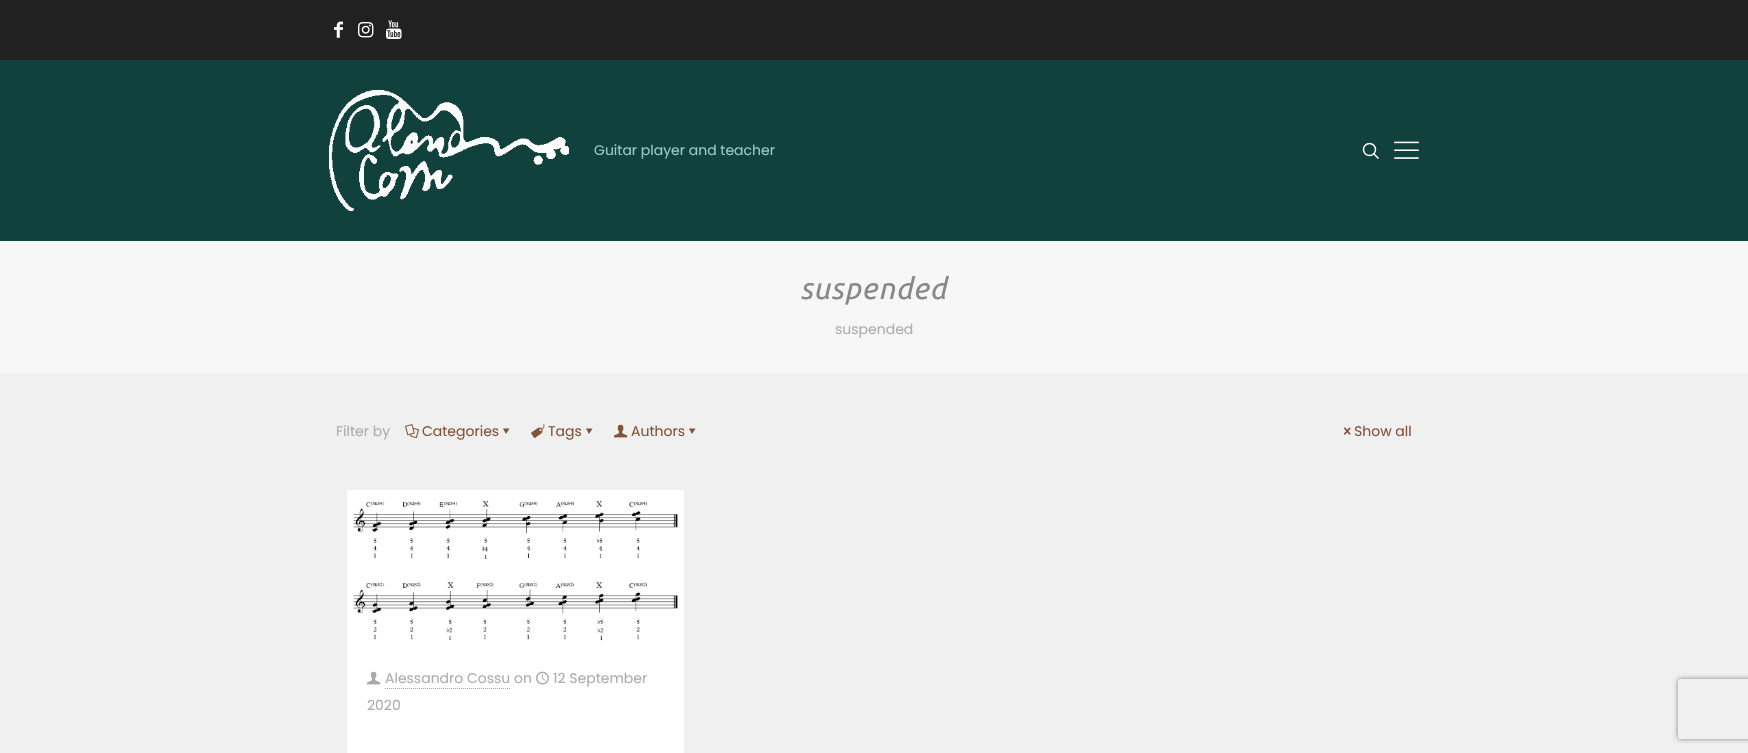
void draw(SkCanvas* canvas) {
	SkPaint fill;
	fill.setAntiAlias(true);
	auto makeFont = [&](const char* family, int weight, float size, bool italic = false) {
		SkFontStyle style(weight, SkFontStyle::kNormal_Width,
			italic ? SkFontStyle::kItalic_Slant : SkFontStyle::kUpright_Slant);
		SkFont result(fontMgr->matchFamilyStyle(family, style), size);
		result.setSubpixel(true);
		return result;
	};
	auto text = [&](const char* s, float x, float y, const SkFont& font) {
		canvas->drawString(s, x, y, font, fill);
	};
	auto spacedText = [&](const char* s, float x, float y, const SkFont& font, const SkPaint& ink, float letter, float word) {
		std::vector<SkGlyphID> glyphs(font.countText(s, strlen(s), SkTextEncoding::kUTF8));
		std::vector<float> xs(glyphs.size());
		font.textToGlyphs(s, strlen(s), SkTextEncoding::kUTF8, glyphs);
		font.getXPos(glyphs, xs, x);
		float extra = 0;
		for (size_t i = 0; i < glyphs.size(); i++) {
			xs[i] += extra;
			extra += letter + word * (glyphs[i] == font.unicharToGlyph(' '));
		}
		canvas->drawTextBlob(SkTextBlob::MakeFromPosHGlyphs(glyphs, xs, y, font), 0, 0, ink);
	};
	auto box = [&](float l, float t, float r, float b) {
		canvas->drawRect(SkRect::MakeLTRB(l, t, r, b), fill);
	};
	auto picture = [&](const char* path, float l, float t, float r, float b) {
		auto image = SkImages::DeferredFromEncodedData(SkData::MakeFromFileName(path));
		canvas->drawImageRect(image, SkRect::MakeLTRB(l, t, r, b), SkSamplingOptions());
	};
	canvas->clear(0xFFF7F7F7);
	fill.setColor(0xFF212121);
	box(0, 0, 1748, 60);
	picture("image0.png", 334, 21, 343, 38);
	picture("image1.png", 358, 22, 374, 38);
	picture("image2.png", 386, 20, 402, 39);
	fill.setColor(0xFF10413C);
	box(0, 60, 1748, 241);
	picture("image3.png", 329, 90, 569, 211);
	fill.setStyle(SkPaint::kStroke_Style);
	fill.setStrokeWidth(1.5f);
	fill.setColor(0xFFFFFFFF);
	canvas->drawCircle(1369.5f, 149.5f, 6, fill);
	canvas->drawPath(SkPathBuilder().moveTo(1373.5f, 153.5f).lineTo(1378.5f, 158.5f).detach(), fill);
	picture("image4.png", 1394, 141, 1419, 159);
	fill.setStyle(SkPaint::kFill_Style);
	fill.setColor(0xFFF0F0F0);
	box(0, 373, 1748, 753);
	picture("image5.png", 405, 424, 419, 439);
	fill.setColor(0xFF825339);
	canvas->drawPath(SkPathBuilder().moveTo(509.5f, 428.5f).lineTo(506, 434).lineTo(503, 428.5f).close().detach(), fill);
	picture("image6.png", 531, 424, 545, 438);
	canvas->drawPath(SkPathBuilder().moveTo(592.5f, 428.5f).lineTo(589, 434).lineTo(586, 428.5f).close().detach(), fill);
	picture("image7.png", 614, 424, 628, 438);
	canvas->drawPath(SkPathBuilder().moveTo(695.5f, 428.5f).lineTo(692, 434).lineTo(689, 428.5f).close().detach(), fill);
	picture("image8.png", 1344, 427, 1351, 435);
	fill.setColor(0xFFFFFFFF);
	box(347, 490, 684, 753);
	picture("image9.png", 353, 501, 678, 641);
	picture("image10.png", 536, 671, 549, 685);
	picture("image11.png", 367, 671, 381, 685);
	fill.setStyle(SkPaint::kStroke_Style);
	fill.setStrokeWidth(1);
	fill.setColor(0xFFA8A8A8);
	fill.setPathEffect(SkDashPathEffect::Make({{1, 1}}, 0));
	canvas->drawPath(SkPathBuilder().moveTo(385, 688.5f).lineTo(510, 688.5f).detach(), fill);
	fill.setPathEffect(nullptr);
	canvas->save();
	canvas->clipPath(SkPathBuilder(SkPathFillType::kEvenOdd).moveTo(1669, 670).lineTo(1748, 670).lineTo(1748, 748).lineTo(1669, 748).close().moveTo(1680, 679).lineTo(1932, 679).cubicTo(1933, 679, 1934, 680, 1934, 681).lineTo(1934, 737).cubicTo(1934, 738, 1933, 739, 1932, 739).lineTo(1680, 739).cubicTo(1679, 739, 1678, 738, 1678, 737).lineTo(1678, 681).cubicTo(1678, 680, 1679, 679, 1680, 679).close().detach(), true);
	fill.setStyle(SkPaint::kFill_Style);
	fill.setColor(0xFF808080);
	fill.setMaskFilter(SkMaskFilter::MakeBlur(kNormal_SkBlurStyle, 2.5f));
	canvas->drawRoundRect(SkRect::MakeLTRB(1678, 679, 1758, 739), 2, 2, fill);
	fill.setMaskFilter(nullptr);
	canvas->restore();
	auto font1 = makeFont("Poppins", 400, 14);
	fill.setColor(0xFF93CBC5);
	text("Guitar player and teacher", 594, 155, font1);
	auto font2 = makeFont("Ubuntu", 400, 30, true);
	fill.setColor(0xFF888888);
	spacedText("suspended", 800, 299, font2, fill, 1, 0);
	fill.setColor(0xFFADADAD);
	text("suspended", 835, 334, font1);
	text("Filter by", 336, 436, font1);
	fill.setColor(0xFF825339);
	text("Categories", 422, 436, font1);
	text("Tags", 548, 436, font1);
	text("Authors", 631, 436, font1);
	text("Show all", 1354, 436, font1);
	fill.setColor(0xFFADADAD);
	text("12 September", 553, 683, font1);
	text("2020", 367, 710, font1);
	text("Alessandro Cossu on", 385, 683, font1);
}
